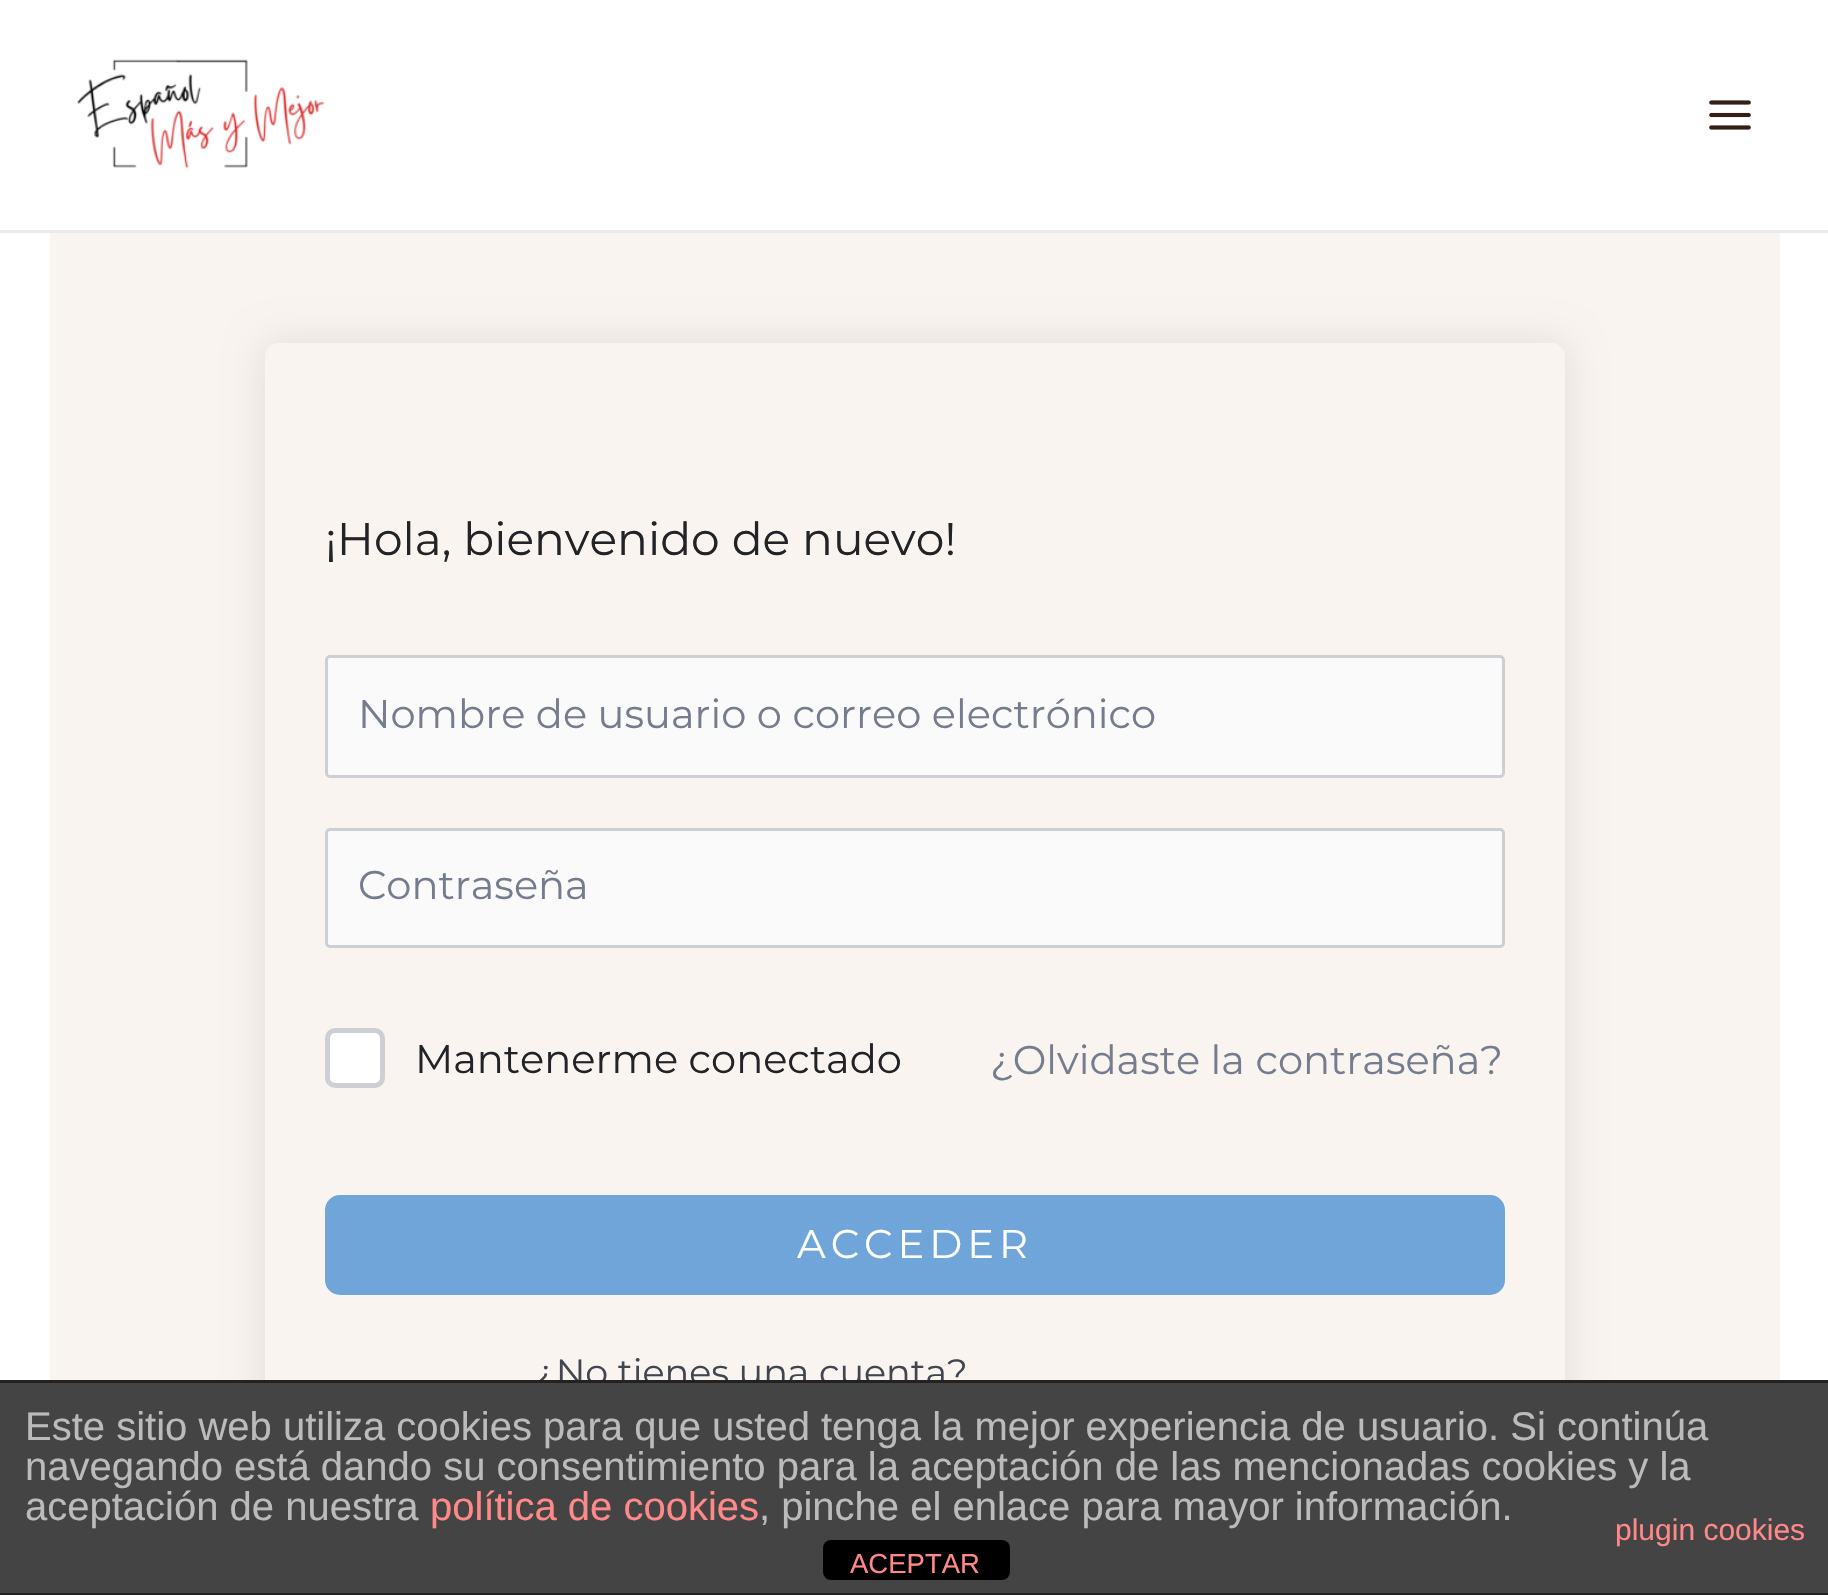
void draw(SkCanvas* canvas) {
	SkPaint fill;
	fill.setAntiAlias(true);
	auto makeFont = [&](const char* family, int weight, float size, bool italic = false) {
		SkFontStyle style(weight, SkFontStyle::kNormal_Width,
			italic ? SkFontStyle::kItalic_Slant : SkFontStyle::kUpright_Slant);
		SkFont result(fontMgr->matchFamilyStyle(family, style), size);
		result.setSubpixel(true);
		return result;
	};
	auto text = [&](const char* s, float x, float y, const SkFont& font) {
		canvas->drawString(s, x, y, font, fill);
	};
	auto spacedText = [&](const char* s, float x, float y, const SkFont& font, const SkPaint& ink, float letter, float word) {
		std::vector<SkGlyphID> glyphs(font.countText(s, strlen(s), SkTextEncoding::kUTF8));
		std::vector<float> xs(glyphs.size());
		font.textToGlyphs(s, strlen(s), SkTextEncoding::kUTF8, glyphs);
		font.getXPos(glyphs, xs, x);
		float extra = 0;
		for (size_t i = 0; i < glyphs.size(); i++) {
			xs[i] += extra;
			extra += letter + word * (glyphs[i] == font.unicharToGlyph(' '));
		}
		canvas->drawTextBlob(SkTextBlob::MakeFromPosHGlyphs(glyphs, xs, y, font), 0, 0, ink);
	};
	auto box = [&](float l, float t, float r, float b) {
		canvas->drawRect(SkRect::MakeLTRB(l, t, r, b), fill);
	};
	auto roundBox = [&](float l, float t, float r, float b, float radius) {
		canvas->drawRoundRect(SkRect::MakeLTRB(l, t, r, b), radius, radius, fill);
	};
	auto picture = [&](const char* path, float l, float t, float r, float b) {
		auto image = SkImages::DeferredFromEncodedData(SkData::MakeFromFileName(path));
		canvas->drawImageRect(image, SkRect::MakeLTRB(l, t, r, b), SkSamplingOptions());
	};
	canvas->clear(0xFFFFFFFF);
	fill.setColor(0xFFEAEAEA);
	box(0, 230, 1828, 233);
	picture("image0.png", 77, 59, 325, 169);
	picture("image1.png", 1709, 100, 1751, 130);
	fill.setColor(0xFFFAF4F1);
	box(50, 233, 1780, 1380);
	canvas->save();
	canvas->clipPath(SkPathBuilder(SkPathFillType::kEvenOdd).moveTo(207, 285).lineTo(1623, 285).lineTo(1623, 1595).lineTo(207, 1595).close().moveTo(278, 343).lineTo(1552, 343).cubicTo(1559, 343, 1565, 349, 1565, 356).lineTo(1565, 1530).cubicTo(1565, 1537, 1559, 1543, 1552, 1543).lineTo(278, 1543).cubicTo(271, 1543, 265, 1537, 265, 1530).lineTo(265, 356).cubicTo(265, 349, 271, 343, 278, 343).close().detach(), true);
	fill.setColor(0x1A000000);
	fill.setMaskFilter(SkMaskFilter::MakeBlur(kNormal_SkBlurStyle, 19));
	canvas->drawRoundRect(SkRect::MakeLTRB(265, 343, 1565, 1543), 13, 13, fill);
	fill.setMaskFilter(nullptr);
	canvas->restore();
	fill.setColor(0xFFFAFAFA);
	canvas->drawRoundRect(SkRect::MakeLTRB(326.5f, 656.5f, 1503.5f, 776.5f), 3.5f, 3.5f, fill);
	fill.setStyle(SkPaint::kStroke_Style);
	fill.setStrokeWidth(3);
	fill.setColor(0xFFCDCFD5);
	canvas->drawRoundRect(SkRect::MakeLTRB(326.5f, 656.5f, 1503.5f, 776.5f), 3.5f, 3.5f, fill);
	fill.setStyle(SkPaint::kFill_Style);
	fill.setColor(0xFFFAFAFA);
	canvas->drawRoundRect(SkRect::MakeLTRB(326.5f, 829.5f, 1503.5f, 946.5f), 3.5f, 3.5f, fill);
	fill.setStyle(SkPaint::kStroke_Style);
	fill.setColor(0xFFCDCFD5);
	canvas->drawRoundRect(SkRect::MakeLTRB(326.5f, 829.5f, 1503.5f, 946.5f), 3.5f, 3.5f, fill);
	fill.setStyle(SkPaint::kFill_Style);
	fill.setColor(0xFFFFFFFF);
	canvas->drawRoundRect(SkRect::MakeLTRB(327.5f, 1030.5f, 382.5f, 1085.5f), 7.5f, 7.5f, fill);
	fill.setStyle(SkPaint::kStroke_Style);
	fill.setStrokeWidth(5);
	fill.setColor(0xFFCDCFD5);
	canvas->drawRoundRect(SkRect::MakeLTRB(327.5f, 1030.5f, 382.5f, 1085.5f), 7.5f, 7.5f, fill);
	fill.setStyle(SkPaint::kFill_Style);
	fill.setColor(0xFF6FA5D8);
	canvas->drawRoundRect(SkRect::MakeLTRB(326.5f, 1196.5f, 1503.5f, 1293.5f), 13.5f, 13.5f, fill);
	fill.setStyle(SkPaint::kStroke_Style);
	fill.setStrokeWidth(3);
	canvas->drawRoundRect(SkRect::MakeLTRB(326.5f, 1196.5f, 1503.5f, 1293.5f), 13.5f, 13.5f, fill);
	fill.setStyle(SkPaint::kFill_Style);
	fill.setColor(0xFF222222);
	box(0, 1593, 1828, 1595);
	auto font1 = makeFont("Montserrat", 400, 45.6f);
	fill.setColor(0xFF212327);
	text("¡Hola, bienvenido de nuevo!", 325, 555, font1);
	auto font2 = makeFont("Montserrat", 400, 40);
	fill.setColor(0xFF757C8E);
	text("Nombre de usuario o correo electrónico", 358, 728, font2);
	text("Contraseña", 358, 899, font2);
	fill.setColor(0xFF212327);
	text("Mantenerme conectado", 415, 1073, font2);
	fill.setColor(0xFF757C8E);
	text("¿Olvidaste la contraseña?", 990, 1074, font2);
	fill.setColor(0xFFFFFFFF);
	spacedText("ACCEDER", 797, 1258, font2, fill, 5, 0);
	auto font3 = makeFont("Montserrat", 400, 36.5f);
	fill.setColor(0xFF41454F);
	text("¿No tienes una cuenta?", 535, 1385, font3);
	fill.setColor(0xFF444444);
	box(0, 1383, 1828, 1593);
	fill.setColor(0xFF222222);
	box(0, 1380, 1828, 1383);
	auto font4 = makeFont("Liberation Sans", 400, 40);
	fill.setColor(0xFFBBBBBB);
	text("Este sitio web utiliza cookies para que usted tenga la mejor experiencia de usuario. Si continúa", 25, 1440, font4);
	text("navegando está dando su consentimiento para la aceptación de las mencionadas cookies y la", 25, 1480, font4);
	text("aceptación de nuestra", 25, 1520, font4);
	fill.setColor(0xFFFF8888);
	text("política de cookies", 430, 1520, font4);
	fill.setColor(0xFFBBBBBB);
	text(", pinche el enlace para mayor información.", 759, 1520, font4);
	auto font5 = makeFont("Liberation Sans", 400, 30);
	fill.setColor(0xFFFF8888);
	text("plugin cookies", 1615, 1540, font5);
	fill.setColor(0xFF000000);
	roundBox(823, 1540, 1010, 1580, 8);
	auto font6 = makeFont("Liberation Sans", 400, 27.5f);
	fill.setColor(0xFFFF8888);
	text("ACEPTAR", 850, 1573, font6);
}
